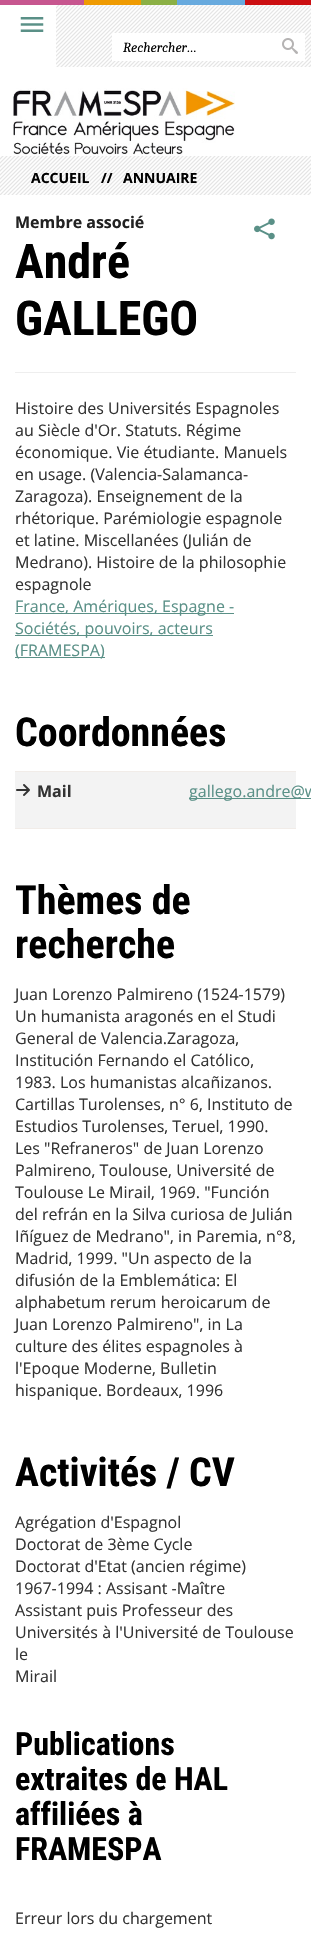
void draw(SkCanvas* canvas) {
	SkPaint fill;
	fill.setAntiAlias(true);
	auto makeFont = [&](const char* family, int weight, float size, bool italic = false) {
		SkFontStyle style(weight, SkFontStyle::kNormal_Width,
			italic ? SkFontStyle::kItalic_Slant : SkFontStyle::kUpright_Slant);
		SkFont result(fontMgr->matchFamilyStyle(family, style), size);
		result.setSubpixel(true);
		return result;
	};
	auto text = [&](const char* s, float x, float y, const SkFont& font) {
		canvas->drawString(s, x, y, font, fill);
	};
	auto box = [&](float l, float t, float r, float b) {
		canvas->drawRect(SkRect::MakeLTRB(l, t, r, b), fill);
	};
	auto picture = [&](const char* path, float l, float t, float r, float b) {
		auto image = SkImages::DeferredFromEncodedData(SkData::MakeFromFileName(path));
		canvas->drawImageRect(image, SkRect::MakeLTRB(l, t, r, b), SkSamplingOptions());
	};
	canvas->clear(0xFFFFFFFF);
	picture("image0.png", 0, 0, 311, 5);
	picture("image1.png", 20, 17, 44, 32);
	fill.setColor(0xFFE5E5E5);
	box(56, 5, 311, 67);
	picture("image2.png", 56, 5, 311, 67);
	fill.setColor(0xFFFFFFFF);
	box(112, 33, 305, 61);
	picture("image3.png", 282, 38, 298, 54);
	picture("image4.png", 13, 88, 235, 156);
	fill.setColor(0xFFE5E5E5);
	box(0, 156, 311, 195);
	picture("image5.png", 0, 156, 311, 195);
	fill.setColor(0xFFEEEEEE);
	box(15, 372, 296, 373);
	fill.setColor(0xFF5A9087);
	box(15, 613, 234, 614);
	box(15, 635, 213, 636);
	box(15, 657, 105, 658);
	picture("image6.png", 254, 218, 275, 240);
	fill.setColor(0xFFF3F3F3);
	box(15, 772, 296, 828);
	fill.setColor(0xFFF1ECE8);
	box(15, 828, 296, 829);
	picture("image7.png", 16, 784, 30, 796);
	box(15, 771, 296, 772);
	fill.setColor(0xFF5A9087);
	box(189, 798, 311, 799);
	auto font1 = makeFont("Caladea", 400, 14, true);
	fill.setColor(0xFF000000);
	text("Rechercher…", 123, 52, font1);
	auto font2 = makeFont("Open Sans", 700, 14);
	text("ACCUEIL", 31, 183, font2);
	text("//", 101, 183, font2);
	text("ANNUAIRE", 123, 183, font2);
	auto font3 = makeFont("Open Sans", 700, 16);
	fill.setColor(0xFF222222);
	text("Membre associé", 15, 228, font3);
	auto font4 = makeFont("Roboto Condensed", 700, 48);
	fill.setColor(0xFF000000);
	text("André", 15, 278, font4);
	text("GALLEGO", 15, 335, font4);
	auto font5 = makeFont("Open Sans", 400, 16);
	fill.setColor(0xFF333333);
	text("Histoire des Universités Espagnoles", 15, 414, font5);
	text("au Siècle d'Or. Statuts. Régime", 15, 436, font5);
	text("économique. Vie étudiante. Manuels", 15, 458, font5);
	text("en usage. (Valencia-Salamanca-", 15, 480, font5);
	text("Zaragoza). Enseignement de la", 15, 502, font5);
	text("rhétorique. Parémiologie espagnole", 15, 524, font5);
	text("et latine. Miscellanées (Julián de", 15, 546, font5);
	text("Medrano). Histoire de la philosophie", 15, 568, font5);
	text("espagnole", 15, 590, font5);
	fill.setColor(0xFF5A9087);
	text("France, Amériques, Espagne -", 15, 612, font5);
	text("Sociétés, pouvoirs, acteurs", 15, 634, font5);
	text("(FRAMESPA)", 15, 656, font5);
	auto font6 = makeFont("Roboto Condensed", 700, 40);
	fill.setColor(0xFF000000);
	text("Coordonnées", 15, 746, font6);
	fill.setColor(0xFF333333);
	text("Mail", 37, 797, font3);
	fill.setColor(0xFF5A9087);
	text("gallego.andre@w", 189, 797, font5);
	fill.setColor(0xFF000000);
	text("Thèmes de", 15, 914, font6);
	text("recherche", 15, 958, font6);
	fill.setColor(0xFF333333);
	text("Juan Lorenzo Palmireno (1524-1579)", 15, 1000, font5);
	text("Un humanista aragonés en el Studi", 15, 1022, font5);
	text("General de Valencia.Zaragoza,", 15, 1044, font5);
	text("Institución Fernando el Católico,", 15, 1066, font5);
	text("1983. Los humanistas alcañizanos.", 15, 1088, font5);
	text("Cartillas Turolenses, n° 6, Instituto de", 15, 1110, font5);
	text("Estudios Turolenses, Teruel, 1990.", 15, 1132, font5);
	text("Les \"Refraneros\" de Juan Lorenzo", 15, 1154, font5);
	text("Palmireno, Toulouse, Université de", 15, 1176, font5);
	text("Toulouse Le Mirail, 1969. \"Función", 15, 1198, font5);
	text("del refrán en la Silva curiosa de Julián", 15, 1220, font5);
	text("Iñíguez de Medrano\", in Paremia, n°8,", 15, 1242, font5);
	text("Madrid, 1999. \"Un aspecto de la", 15, 1264, font5);
	text("difusión de la Emblemática: El", 15, 1286, font5);
	text("alphabetum rerum heroicarum de", 15, 1308, font5);
	text("Juan Lorenzo Palmireno\", in La", 15, 1330, font5);
	text("culture des élites espagnoles à", 15, 1352, font5);
	text("l'Epoque Moderne, Bulletin", 15, 1374, font5);
	text("hispanique. Bordeaux, 1996", 15, 1396, font5);
	fill.setColor(0xFF000000);
	text("Activités / CV", 15, 1486, font6);
	fill.setColor(0xFF333333);
	text("Agrégation d'Espagnol", 15, 1528, font5);
	text("Doctorat de 3ème Cycle", 15, 1550, font5);
	text("Doctorat d'Etat (ancien régime)", 15, 1572, font5);
	text("1967-1994 : Assisant -Maître", 15, 1594, font5);
	text("Assistant puis Professeur des", 15, 1616, font5);
	text("Universités à l'Université de Toulouse", 15, 1638, font5);
	text("le", 15, 1660, font5);
	text("Mirail", 15, 1682, font5);
	auto font7 = makeFont("Roboto Condensed", 700, 32);
	fill.setColor(0xFF000000);
	text("Publications", 15, 1755, font7);
	text("extraites de HAL", 15, 1790, font7);
	text("affiliées à", 15, 1825, font7);
	text("FRAMESPA", 15, 1860, font7);
	fill.setColor(0xFF333333);
	text("Erreur lors du chargement", 15, 1924, font5);
}
